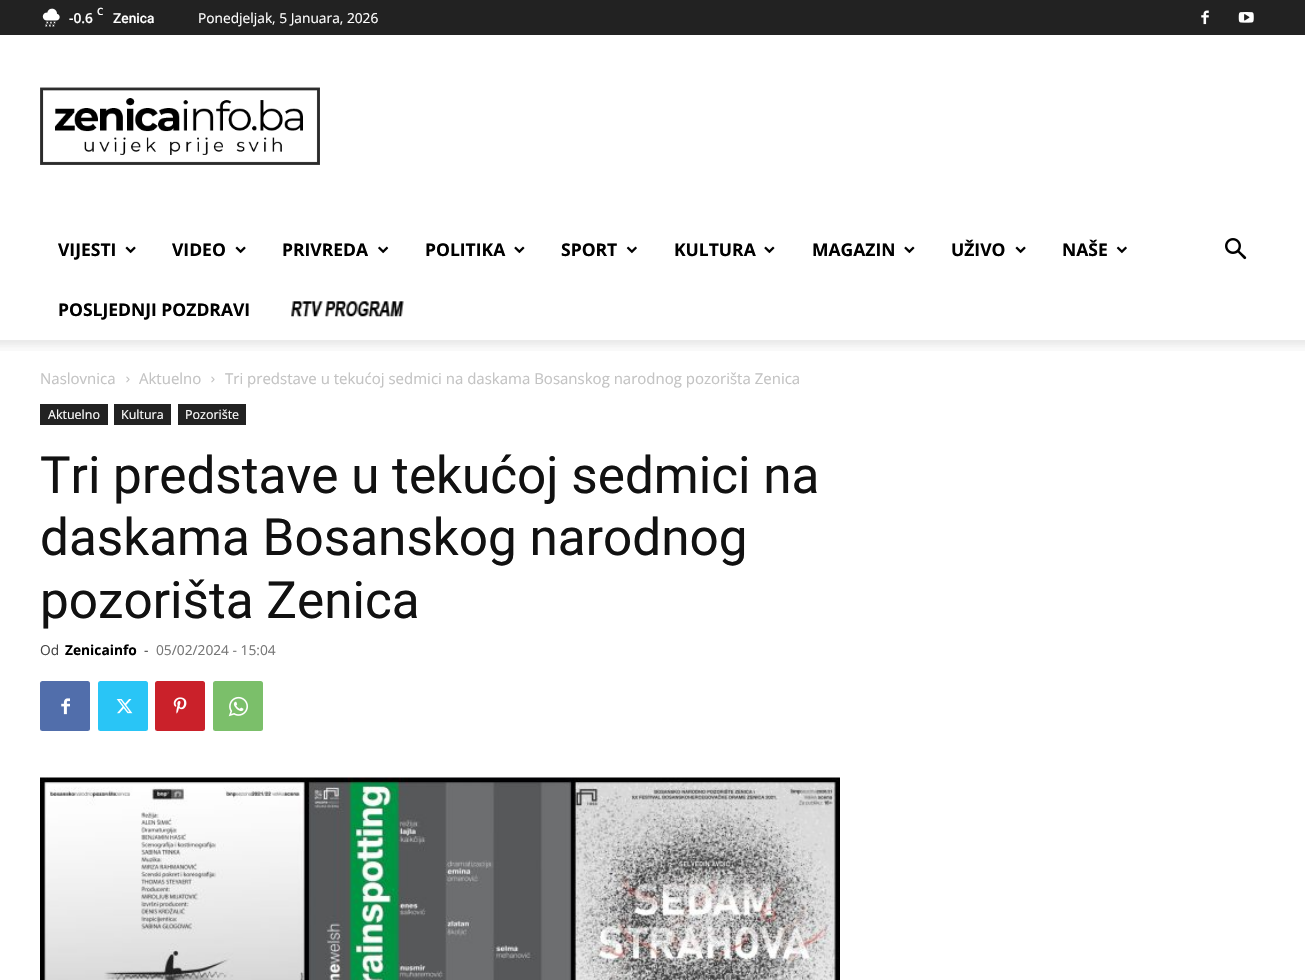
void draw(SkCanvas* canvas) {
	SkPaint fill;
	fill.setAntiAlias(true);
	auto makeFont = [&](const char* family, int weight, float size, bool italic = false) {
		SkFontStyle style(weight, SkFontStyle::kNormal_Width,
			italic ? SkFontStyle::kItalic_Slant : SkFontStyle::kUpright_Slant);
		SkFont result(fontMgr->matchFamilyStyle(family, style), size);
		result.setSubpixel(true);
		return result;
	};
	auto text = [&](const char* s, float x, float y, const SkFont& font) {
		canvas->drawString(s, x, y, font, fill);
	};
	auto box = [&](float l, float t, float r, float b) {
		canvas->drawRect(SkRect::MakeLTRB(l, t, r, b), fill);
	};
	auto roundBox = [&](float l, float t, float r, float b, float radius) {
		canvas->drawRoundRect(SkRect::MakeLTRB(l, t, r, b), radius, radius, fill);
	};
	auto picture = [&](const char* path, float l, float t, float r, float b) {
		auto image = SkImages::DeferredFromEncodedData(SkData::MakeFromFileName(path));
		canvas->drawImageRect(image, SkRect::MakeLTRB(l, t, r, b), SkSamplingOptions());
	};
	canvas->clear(0xFFFFFFFF);
	fill.setColor(0xFF222222);
	box(0, 0, 1305, 35);
	picture("image0.png", 42, 8, 60, 27);
	picture("image1.png", 1201, 10, 1209, 25);
	picture("image2.png", 1238, 12, 1254, 23);
	picture("image3.png", 40, 87, 320, 165);
	picture("image4.png", 125, 246, 136, 254);
	picture("image4.png", 235, 246, 246, 254);
	picture("image5.png", 378, 246, 389, 254);
	picture("image6.png", 514, 246, 525, 254);
	picture("image7.png", 626, 246, 637, 254);
	picture("image6.png", 764, 246, 775, 254);
	picture("image6.png", 904, 246, 915, 254);
	picture("image4.png", 1015, 246, 1026, 254);
	picture("image7.png", 1116, 246, 1127, 254);
	picture("image8.png", 291, 301, 404, 317);
	picture("image9.png", 1225, 238, 1247, 260);
	picture("image10.png", 0, 340, 1305, 351);
	picture("image11.png", 126, 376, 130, 383);
	picture("image11.png", 211, 376, 215, 383);
	box(40, 404, 108, 425);
	box(114, 404, 171, 425);
	box(178, 404, 246, 425);
	fill.setColor(0xFF516EAB);
	roundBox(40, 681, 90, 731, 2.5f);
	picture("image12.png", 61, 698, 70, 715);
	fill.setColor(0xFF29C5F6);
	roundBox(98, 681, 148, 731, 2.5f);
	picture("image13.png", 116, 699, 133, 714);
	fill.setColor(0xFFCA212A);
	roundBox(155, 681, 205, 731, 2.5f);
	picture("image14.png", 173, 697, 187, 714);
	fill.setColor(0xFF7BBF6A);
	roundBox(213, 681, 263, 731, 2.5f);
	picture("image15.png", 228, 696, 248, 717);
	picture("image16.png", 40, 777, 840, 980);
	auto font1 = makeFont("Open Sans", 600, 10);
	fill.setColor(0xFFFFFFFF);
	text("C", 97, 15, font1);
	auto font2 = makeFont("Open Sans", 600, 13.75f);
	text("-0.6", 69, 23, font2);
	auto font3 = makeFont("Roboto", 500, 13.75f);
	text("Zenica", 113, 23, font3);
	auto font4 = makeFont("Open Sans", 400, 13.75f);
	text("Ponedjeljak, 5 Januara, 2026", 198, 23, font4);
	auto font5 = makeFont("Open Sans", 700, 17.5f);
	fill.setColor(0xFF000000);
	text("VIJESTI", 58, 256, font5);
	text("VIDEO", 172, 256, font5);
	text("PRIVREDA", 282, 256, font5);
	text("POLITIKA", 425, 256, font5);
	text("SPORT", 561, 256, font5);
	text("KULTURA", 674, 256, font5);
	text("MAGAZIN", 812, 256, font5);
	text("UŽIVO", 951, 256, font5);
	text("NAŠE", 1062, 256, font5);
	text("POSLJEDNJI POZDRAVI", 58, 316, font5);
	auto font6 = makeFont("Open Sans", 400, 15);
	fill.setColor(0xFFC3C3C3);
	text("Naslovnica", 40, 384, font6);
	text("Aktuelno", 139, 384, font6);
	text("Tri predstave u tekućoj sedmici na daskama Bosanskog narodnog pozorišta Zenica", 225, 384, font6);
	auto font7 = makeFont("Open Sans", 400, 12.5f);
	fill.setColor(0xFFFFFFFF);
	text("Aktuelno", 48, 419, font7);
	text("Kultura", 121, 419, font7);
	text("Pozorište", 185, 419, font7);
	auto font8 = makeFont("Roboto", 400, 51.25f);
	fill.setColor(0xFF111111);
	text("Tri predstave u tekućoj sedmici na", 40, 493, font8);
	text("daskama Bosanskog narodnog", 40, 555, font8);
	text("pozorišta Zenica", 40, 618, font8);
	fill.setColor(0xFF444444);
	text("Od", 40, 655, font4);
	auto font9 = makeFont("Open Sans", 700, 13.75f);
	fill.setColor(0xFF000000);
	text("Zenicainfo", 65, 655, font9);
	fill.setColor(0xFF444444);
	text("-", 144, 655, font4);
	fill.setColor(0xFF767676);
	text("05/02/2024 - 15:04", 156, 655, font4);
}
